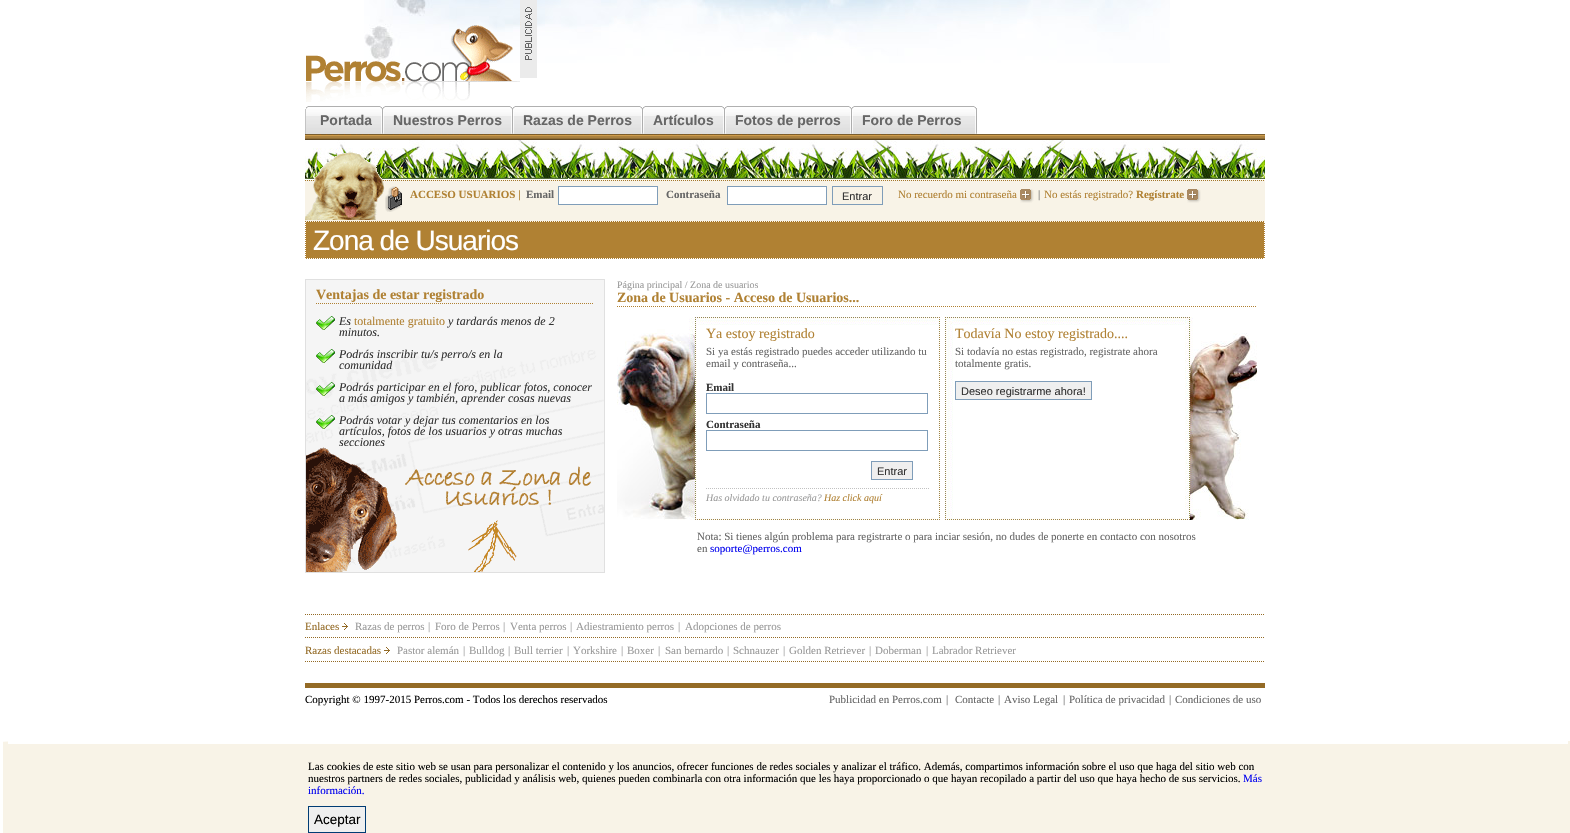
void draw(SkCanvas* canvas) {
	SkPaint fill;
	fill.setAntiAlias(true);
	auto makeFont = [&](const char* family, int weight, float size, bool italic = false) {
		SkFontStyle style(weight, SkFontStyle::kNormal_Width,
			italic ? SkFontStyle::kItalic_Slant : SkFontStyle::kUpright_Slant);
		SkFont result(fontMgr->matchFamilyStyle(family, style), size);
		result.setSubpixel(true);
		return result;
	};
	auto text = [&](const char* s, float x, float y, const SkFont& font) {
		canvas->drawString(s, x, y, font, fill);
	};
	auto spacedText = [&](const char* s, float x, float y, const SkFont& font, const SkPaint& ink, float letter, float word) {
		std::vector<SkGlyphID> glyphs(font.countText(s, strlen(s), SkTextEncoding::kUTF8));
		std::vector<float> xs(glyphs.size());
		font.textToGlyphs(s, strlen(s), SkTextEncoding::kUTF8, glyphs);
		font.getXPos(glyphs, xs, x);
		float extra = 0;
		for (size_t i = 0; i < glyphs.size(); i++) {
			xs[i] += extra;
			extra += letter + word * (glyphs[i] == font.unicharToGlyph(' '));
		}
		canvas->drawTextBlob(SkTextBlob::MakeFromPosHGlyphs(glyphs, xs, y, font), 0, 0, ink);
	};
	auto box = [&](float l, float t, float r, float b) {
		canvas->drawRect(SkRect::MakeLTRB(l, t, r, b), fill);
	};
	auto picture = [&](const char* path, float l, float t, float r, float b) {
		auto image = SkImages::DeferredFromEncodedData(SkData::MakeFromFileName(path));
		canvas->drawImageRect(image, SkRect::MakeLTRB(l, t, r, b), SkSamplingOptions());
	};
	canvas->clear(0xFFFFFFFF);
	picture("image0.png", 364, 0, 1170, 63);
	picture("image1.png", 306, 24, 520, 102);
	picture("image2.png", 520, 0, 537, 78);
	picture("image3.png", 305, 134, 1265, 140);
	picture("image4.png", 305, 106, 320, 134);
	picture("image5.png", 320, 106, 372, 135);
	picture("image7.png", 393, 106, 502, 135);
	picture("image6.png", 502, 106, 523, 134);
	picture("image7.png", 523, 106, 632, 135);
	picture("image6.png", 632, 106, 653, 134);
	picture("image8.png", 653, 106, 714, 135);
	picture("image6.png", 714, 106, 735, 134);
	picture("image9.png", 735, 106, 841, 135);
	picture("image6.png", 841, 106, 862, 134);
	picture("image10.png", 862, 106, 961, 135);
	picture("image11.png", 961, 106, 977, 134);
	picture("image12.png", 305, 140, 1265, 179);
	fill.setColor(0xFFF8F3E7);
	box(305, 180, 1265, 222);
	picture("image13.png", 385, 186, 402, 212);
	fill.setStyle(SkPaint::kStroke_Style);
	fill.setStrokeWidth(1);
	fill.setColor(0xFFA47528);
	fill.setPathEffect(SkDashPathEffect::Make({{1, 1}}, 0));
	canvas->drawPath(SkPathBuilder().moveTo(305, 180.5f).lineTo(1265, 180.5f).detach(), fill);
	fill.setPathEffect(nullptr);
	fill.setPathEffect(SkDashPathEffect::Make({{1, 1}}, 0));
	canvas->drawPath(SkPathBuilder().moveTo(305, 221.5f).lineTo(1265, 221.5f).detach(), fill);
	fill.setPathEffect(nullptr);
	picture("image14.png", 305, 152, 385, 220);
	fill.setStyle(SkPaint::kFill_Style);
	fill.setColor(0xFFFFFFFF);
	canvas->drawRect(SkRect::MakeLTRB(558.5f, 186.5f, 657.5f, 204.5f), fill);
	fill.setStyle(SkPaint::kStroke_Style);
	fill.setColor(0xFF7F9DB9);
	canvas->drawRect(SkRect::MakeLTRB(558.5f, 186.5f, 657.5f, 204.5f), fill);
	fill.setStyle(SkPaint::kFill_Style);
	fill.setColor(0xFFFFFFFF);
	canvas->drawRect(SkRect::MakeLTRB(727.5f, 186.5f, 826.5f, 204.5f), fill);
	fill.setStyle(SkPaint::kStroke_Style);
	fill.setColor(0xFF7F9DB9);
	canvas->drawRect(SkRect::MakeLTRB(727.5f, 186.5f, 826.5f, 204.5f), fill);
	canvas->drawRect(SkRect::MakeLTRB(832.5f, 186.5f, 882.5f, 204.5f), fill);
	picture("image15.png", 1020, 189, 1034, 203);
	picture("image15.png", 1187, 189, 1201, 203);
	fill.setStyle(SkPaint::kFill_Style);
	fill.setColor(0xFFB08133);
	box(305, 222, 1265, 259);
	fill.setStyle(SkPaint::kStroke_Style);
	fill.setColor(0xFFFFFFFF);
	fill.setPathEffect(SkDashPathEffect::Make({{1, 1}}, 0));
	canvas->drawPath(SkPathBuilder().moveTo(1264.5f, 222).lineTo(1264.5f, 259).detach(), fill);
	fill.setPathEffect(nullptr);
	fill.setPathEffect(SkDashPathEffect::Make({{1, 1}}, 0));
	canvas->drawPath(SkPathBuilder().moveTo(305, 258.5f).lineTo(1265, 258.5f).detach(), fill);
	fill.setPathEffect(nullptr);
	fill.setPathEffect(SkDashPathEffect::Make({{1, 1}}, 0));
	canvas->drawPath(SkPathBuilder().moveTo(305.5f, 222).lineTo(305.5f, 259).detach(), fill);
	fill.setPathEffect(nullptr);
	fill.setStyle(SkPaint::kFill_Style);
	fill.setColor(0xFFF5F5F5);
	box(306, 280, 604, 350);
	picture("image16.png", 306, 350, 604, 572);
	fill.setStyle(SkPaint::kStroke_Style);
	fill.setColor(0xFFE0E0E0);
	canvas->drawRect(SkRect::MakeLTRB(305.5f, 279.5f, 604.5f, 572.5f), fill);
	fill.setColor(0xFFB08133);
	fill.setPathEffect(SkDashPathEffect::Make({{1, 1}}, 0));
	canvas->drawPath(SkPathBuilder().moveTo(316, 303.5f).lineTo(594, 303.5f).detach(), fill);
	fill.setPathEffect(nullptr);
	picture("image17.png", 316, 316, 335, 330);
	picture("image17.png", 316, 349, 335, 363);
	picture("image18.png", 316, 382, 335, 396);
	picture("image19.png", 316, 415, 335, 429);
	fill.setPathEffect(SkDashPathEffect::Make({{1, 1}}, 0));
	canvas->drawPath(SkPathBuilder().moveTo(617, 306.5f).lineTo(1257, 306.5f).detach(), fill);
	fill.setPathEffect(nullptr);
	picture("image20.png", 617, 317, 940, 520);
	fill.setColor(0xFF7F9DB9);
	canvas->drawRect(SkRect::MakeLTRB(706.5f, 393.5f, 927.5f, 413.5f), fill);
	canvas->drawRect(SkRect::MakeLTRB(706.5f, 430.5f, 927.5f, 450.5f), fill);
	fill.setStyle(SkPaint::kFill_Style);
	fill.setColor(0xFFEFEFEF);
	canvas->drawRect(SkRect::MakeLTRB(871.5f, 461.5f, 912.5f, 479.5f), fill);
	fill.setStyle(SkPaint::kStroke_Style);
	fill.setColor(0xFF7F9DB9);
	canvas->drawRect(SkRect::MakeLTRB(871.5f, 461.5f, 912.5f, 479.5f), fill);
	fill.setColor(0xFFC1C1C1);
	fill.setPathEffect(SkDashPathEffect::Make({{1, 1}}, 0));
	canvas->drawPath(SkPathBuilder().moveTo(706, 488.5f).lineTo(930, 488.5f).detach(), fill);
	fill.setPathEffect(nullptr);
	picture("image21.png", 945, 317, 1257, 520);
	fill.setStyle(SkPaint::kFill_Style);
	fill.setColor(0xFFEFEFEF);
	canvas->drawRect(SkRect::MakeLTRB(955.5f, 381.5f, 1091.5f, 399.5f), fill);
	fill.setStyle(SkPaint::kStroke_Style);
	fill.setColor(0xFF7F9DB9);
	canvas->drawRect(SkRect::MakeLTRB(955.5f, 381.5f, 1091.5f, 399.5f), fill);
	fill.setColor(0xFF946B26);
	fill.setPathEffect(SkDashPathEffect::Make({{1, 1}}, 0));
	canvas->drawPath(SkPathBuilder().moveTo(305, 614.5f).lineTo(1265, 614.5f).detach(), fill);
	fill.setPathEffect(nullptr);
	fill.setPathEffect(SkDashPathEffect::Make({{1, 1}}, 0));
	canvas->drawPath(SkPathBuilder().moveTo(305, 637.5f).lineTo(1265, 637.5f).detach(), fill);
	fill.setPathEffect(nullptr);
	picture("image22.png", 342, 623, 348, 630);
	fill.setPathEffect(SkDashPathEffect::Make({{1, 1}}, 0));
	canvas->drawPath(SkPathBuilder().moveTo(305, 661.5f).lineTo(1265, 661.5f).detach(), fill);
	fill.setPathEffect(nullptr);
	picture("image22.png", 384, 647, 390, 654);
	fill.setStyle(SkPaint::kFill_Style);
	box(305, 683, 1265, 688);
	fill.setColor(0xFFF8F3E7);
	canvas->drawPath(SkPathBuilder().moveTo(16, 741).lineTo(1560, 741).cubicTo(1569, 741, 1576, 741, 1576, 742).lineTo(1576, 833).lineTo(0, 833).lineTo(0, 742).close().detach(), fill);
	fill.setColor(0xFFFFFFFF);
	box(8, 741, 1568, 744);
	box(0, 741, 3, 833);
	fill.setColor(0xFFEFEFEF);
	canvas->drawRect(SkRect::MakeLTRB(308.5f, 806.5f, 365.5f, 832.5f), fill);
	fill.setStyle(SkPaint::kStroke_Style);
	fill.setColor(0xFF003C74);
	canvas->drawRect(SkRect::MakeLTRB(308.5f, 806.5f, 365.5f, 832.5f), fill);
	auto font1 = makeFont("Liberation Sans", 700, 14);
	fill.setStyle(SkPaint::kFill_Style);
	fill.setColor(0xFF666666);
	text("Portada", 320, 125, font1);
	picture("image6.png", 372, 106, 393, 134);
	text("Nuestros Perros", 393, 125, font1);
	text("Razas de Perros", 523, 125, font1);
	text("Artículos", 653, 125, font1);
	text("Fotos de perros", 735, 125, font1);
	text("Foro de Perros", 862, 125, font1);
	auto font2 = makeFont("Liberation Serif", 700, 11);
	fill.setColor(0xFFB08133);
	text("ACCESO USUARIOS |", 410, 198, font2);
	fill.setColor(0xFF666666);
	text("Email", 526, 198, font2);
	text("Contraseña", 666, 198, font2);
	auto font3 = makeFont("Liberation Sans", 400, 11);
	fill.setColor(0xFF333333);
	text("Entrar", 842, 200, font3);
	auto font4 = makeFont("Liberation Serif", 400, 11);
	fill.setColor(0xFFB08133);
	text("No recuerdo mi contraseña", 898, 198, font4);
	fill.setColor(0xFF666666);
	text("|", 1038, 198, font4);
	fill.setColor(0xFFB08133);
	text("No estás registrado?", 1044, 198, font4);
	text("Regístrate", 1136, 198, font2);
	auto font5 = makeFont("Liberation Sans", 400, 28);
	fill.setColor(0xFFFFFFFF);
	spacedText("Zona de Usuarios", 313, 250, font5, fill, -1, 0);
	auto font6 = makeFont("Liberation Serif", 700, 14);
	fill.setColor(0xFFB08133);
	text("Ventajas de estar registrado", 316, 299, font6);
	auto font7 = makeFont("Liberation Serif", 400, 12, true);
	fill.setColor(0xFF333333);
	text("Es", 339, 325, font7);
	auto font8 = makeFont("Liberation Serif", 400, 12);
	fill.setColor(0xFFB08133);
	text("totalmente gratuito", 354, 325, font8);
	fill.setColor(0xFF333333);
	text("y tardarás menos de 2", 448, 325, font7);
	text("minutos.", 339, 336, font7);
	text("Podrás inscribir tu/s perro/s en la", 339, 358, font7);
	text("comunidad", 339, 369, font7);
	text("Podrás participar en el foro, publicar fotos, conocer", 339, 391, font7);
	text("a más amigos y también, aprender cosas nuevas", 339, 402, font7);
	text("Podrás votar y dejar tus comentarios en los", 339, 424, font7);
	text("artículos, fotos de los usuarios y otras muchas", 339, 435, font7);
	text("secciones", 339, 446, font7);
	auto font9 = makeFont("Liberation Serif", 400, 10);
	fill.setColor(0xFF999999);
	text("Página principal / Zona de usuarios", 617, 288, font9);
	fill.setColor(0xFFB08133);
	text("Zona de Usuarios - Acceso de Usuarios...", 617, 302, font6);
	auto font10 = makeFont("Liberation Serif", 400, 14);
	text("Ya estoy registrado", 706, 338, font10);
	fill.setColor(0xFF666666);
	text("Si ya estás registrado puedes acceder utilizando tu", 706, 355, font4);
	text("email y contraseña...", 706, 367, font4);
	fill.setColor(0xFF333333);
	text("Email", 706, 391, font2);
	text("Contraseña", 706, 428, font2);
	text("Entrar", 877, 475, font3);
	auto font11 = makeFont("Liberation Serif", 400, 10, true);
	fill.setColor(0xFF999999);
	text("Has olvidado tu contraseña?", 706, 501, font11);
	fill.setColor(0xFFB08133);
	text("Haz click aquí", 824, 501, font11);
	text("Todavía No estoy registrado....", 955, 338, font10);
	fill.setColor(0xFF666666);
	text("Si todavía no estas registrado, registrate ahora", 955, 355, font4);
	text("totalmente gratis.", 955, 367, font4);
	fill.setColor(0xFF333333);
	text("Deseo registrarme ahora!", 961, 395, font3);
	fill.setColor(0xFF666666);
	text("Nota: Si tienes algún problema para registrarte o para inciar sesión, no dudes de ponerte en contacto con nosotros", 697, 540, font4);
	text("en", 697, 552, font4);
	fill.setColor(0xFF0000EE);
	text("soporte@perros.com", 710, 552, font4);
	fill.setColor(0xFF946B26);
	text("Enlaces", 305, 630, font4);
	fill.setColor(0xFF999999);
	text("Razas de perros", 355, 630, font4);
	text("|", 428, 630, font4);
	text("Foro de Perros", 435, 630, font4);
	text("|", 503, 630, font4);
	text("Venta perros", 510, 630, font4);
	text("|", 570, 630, font4);
	text("Adiestramiento perros", 576, 630, font4);
	text("|", 678, 630, font4);
	text("Adopciones de perros", 685, 630, font4);
	fill.setColor(0xFF946B26);
	text("Razas destacadas", 305, 654, font4);
	fill.setColor(0xFF999999);
	text("Pastor alemán", 397, 654, font4);
	text("|", 463, 654, font4);
	text("Bulldog", 469, 654, font4);
	text("|", 508, 654, font4);
	text("Bull terrier", 514, 654, font4);
	text("|", 567, 654, font4);
	text("Yorkshire", 573, 654, font4);
	text("|", 621, 654, font4);
	text("Boxer", 627, 654, font4);
	text("|", 658, 654, font4);
	text("San bernardo", 665, 654, font4);
	text("|", 727, 654, font4);
	text("Schnauzer", 733, 654, font4);
	text("|", 783, 654, font4);
	text("Golden Retriever", 789, 654, font4);
	text("|", 869, 654, font4);
	text("Doberman", 875, 654, font4);
	text("|", 926, 654, font4);
	text("Labrador Retriever", 932, 654, font4);
	fill.setColor(0xFF000000);
	text("Copyright © 1997-2015 Perros.com - Todos los derechos reservados", 305, 703, font4);
	fill.setColor(0xFF666666);
	text("Publicidad en Perros.com", 829, 703, font4);
	text("|", 946, 703, font4);
	text("Contacte", 955, 703, font4);
	text("|", 998, 703, font4);
	text("Aviso Legal", 1004, 703, font4);
	text("|", 1063, 703, font4);
	text("Política de privacidad", 1069, 703, font4);
	text("|", 1169, 703, font4);
	text("Condiciones de uso", 1175, 703, font4);
	fill.setColor(0xFF000000);
	text("Las cookies de este sitio web se usan para personalizar el contenido y los anuncios, ofrecer funciones de redes sociales y analizar el tráfico. Además, compartimos información sobre el uso que haga del sitio web con", 308, 770, font4);
	text("nuestros partners de redes sociales, publicidad y análisis web, quienes pueden combinarla con otra información que les haya proporcionado o que hayan recopilado a partir del uso que haya hecho de sus servicios.", 308, 782, font4);
	fill.setColor(0xFF0000EE);
	text("Más", 1243, 782, font4);
	text("información.", 308, 794, font4);
	auto font12 = makeFont("Liberation Sans", 400, 13.5f);
	fill.setColor(0xFF000000);
	text("Aceptar", 314, 824, font12);
}
